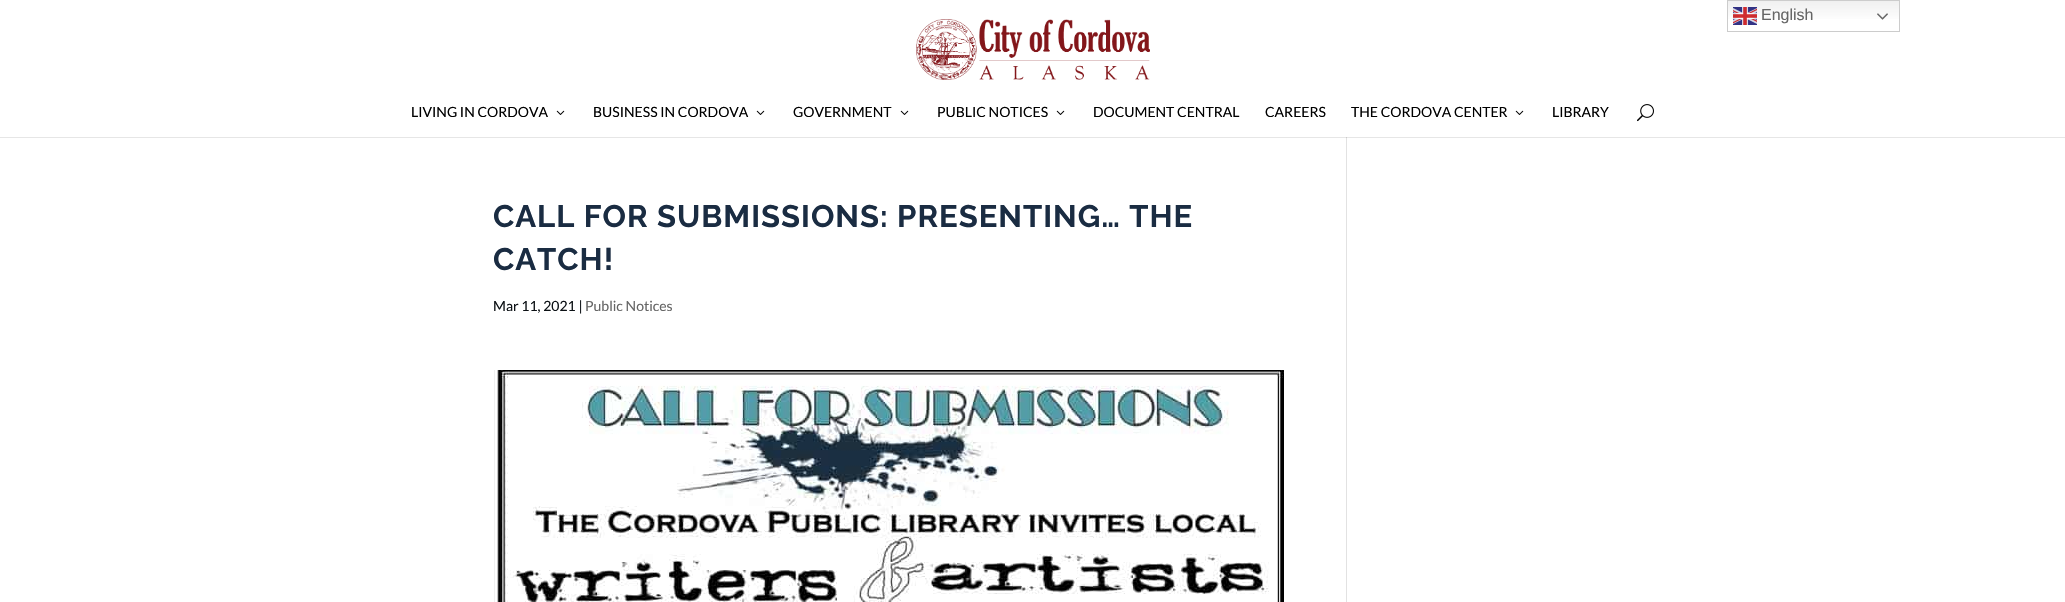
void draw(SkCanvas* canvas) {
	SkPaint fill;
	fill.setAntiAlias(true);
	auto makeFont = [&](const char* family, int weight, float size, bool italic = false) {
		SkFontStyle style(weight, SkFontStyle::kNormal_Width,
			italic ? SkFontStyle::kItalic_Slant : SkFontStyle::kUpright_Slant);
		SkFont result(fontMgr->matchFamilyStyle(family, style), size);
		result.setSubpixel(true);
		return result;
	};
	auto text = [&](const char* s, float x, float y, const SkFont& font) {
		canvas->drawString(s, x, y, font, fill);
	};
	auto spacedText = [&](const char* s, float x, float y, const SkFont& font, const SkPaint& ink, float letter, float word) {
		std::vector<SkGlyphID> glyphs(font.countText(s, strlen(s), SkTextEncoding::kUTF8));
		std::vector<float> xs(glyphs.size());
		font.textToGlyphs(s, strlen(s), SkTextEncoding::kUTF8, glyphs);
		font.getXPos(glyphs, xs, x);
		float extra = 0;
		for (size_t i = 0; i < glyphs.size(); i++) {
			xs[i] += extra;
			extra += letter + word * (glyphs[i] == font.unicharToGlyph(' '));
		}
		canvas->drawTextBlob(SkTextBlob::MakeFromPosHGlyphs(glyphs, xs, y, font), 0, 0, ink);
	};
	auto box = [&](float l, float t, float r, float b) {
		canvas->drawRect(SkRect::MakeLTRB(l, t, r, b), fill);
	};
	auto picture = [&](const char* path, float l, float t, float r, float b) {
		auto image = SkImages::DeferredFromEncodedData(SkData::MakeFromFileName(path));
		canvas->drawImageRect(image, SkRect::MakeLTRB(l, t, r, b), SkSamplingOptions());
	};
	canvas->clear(0xFFFFFFFF);
	fill.setColor(0xFFE6E6E6);
	box(0, 137, 2065, 138);
	{
		const SkColor colors[] = {0xFFEFEFEF, 0xFFFFFFFF};
		const float stops[] = {0, 0.7f};
		const SkPoint ends[] = {{1814, 0}, {1814, 32}};
		fill.setShader(SkGradientShader::MakeLinear(ends, colors, stops, 2, SkTileMode::kClamp));
		fill.setAlpha(255);
	}
	box(1728, 1, 1899, 19);
	fill.setStyle(SkPaint::kStroke_Style);
	fill.setStrokeWidth(1);
	fill.setShader(nullptr);
	fill.setColor(0xFFCCCCCC);
	canvas->drawRect(SkRect::MakeLTRB(1727.5f, 0.5f, 1899.5f, 31.5f), fill);
	picture("image0.png", 1733, 7, 1757, 25);
	picture("image1.png", 1877, 13, 1888, 20);
	picture("image2.png", 916, 19, 1150, 80);
	picture("image3.png", 556, 110, 565, 115);
	picture("image3.png", 756, 110, 765, 115);
	picture("image3.png", 900, 110, 909, 115);
	picture("image3.png", 1056, 110, 1065, 115);
	picture("image3.png", 1515, 110, 1524, 115);
	picture("image4.png", 1637, 104, 1654, 122);
	picture("image5.png", 494, 370, 1284, 602);
	fill.setStyle(SkPaint::kFill_Style);
	fill.setColor(0xFFE2E2E2);
	box(1346, 137, 1347, 602);
	fill.setColor(0xFFCBCBCB);
	box(1346, 137, 1347, 138);
	auto font1 = makeFont("Liberation Sans", 400, 16);
	fill.setColor(0xFF666666);
	text("English", 1761, 20, font1);
	auto font2 = makeFont("Lato", 400, 14);
	fill.setColor(0xFF000000);
	text("LIVING IN CORDOVA", 411, 117, font2);
	text("BUSINESS IN CORDOVA", 593, 117, font2);
	text("GOVERNMENT", 793, 117, font2);
	text("PUBLIC NOTICES", 937, 117, font2);
	text("DOCUMENT CENTRAL", 1093, 117, font2);
	text("CAREERS", 1265, 117, font2);
	text("THE CORDOVA CENTER", 1351, 117, font2);
	text("LIBRARY", 1552, 117, font2);
	auto font3 = makeFont("Raleway", 700, 31);
	fill.setColor(0xFF1A2C42);
	spacedText("CALL FOR SUBMISSIONS: PRESENTING… THE", 493, 227, font3, fill, 1, 0);
	spacedText("CATCH!", 493, 270, font3, fill, 1, 0);
	fill.setColor(0xFF0C1115);
	text("Mar 11, 2021 |", 493, 311, font2);
	fill.setColor(0xFF666666);
	text("Public Notices", 585, 311, font2);
}
